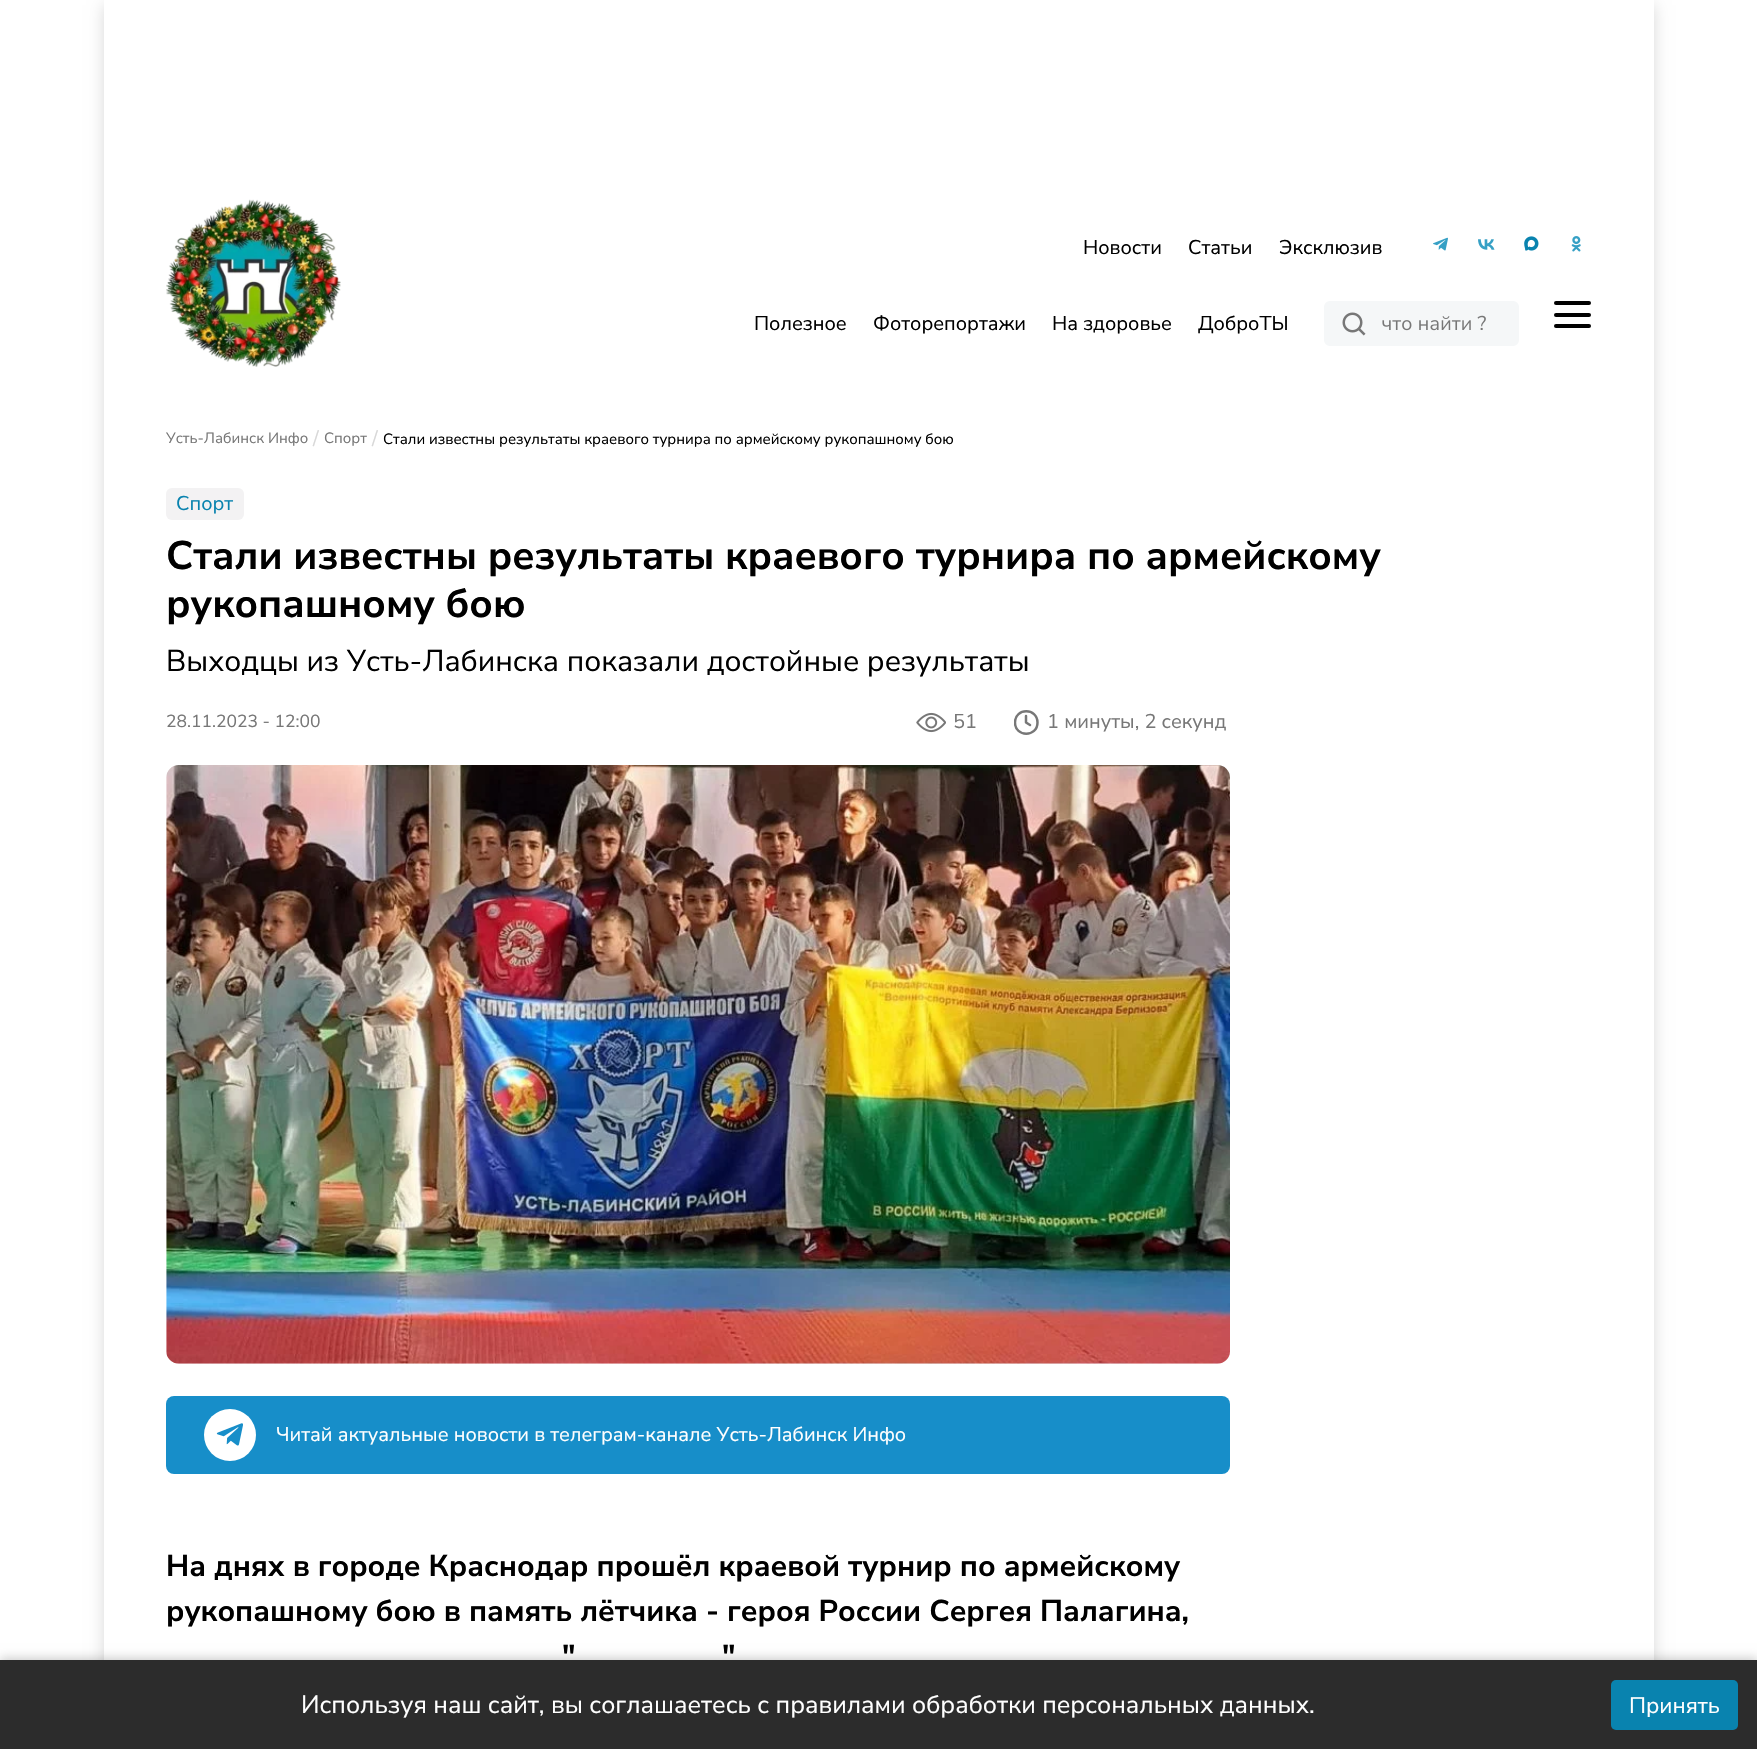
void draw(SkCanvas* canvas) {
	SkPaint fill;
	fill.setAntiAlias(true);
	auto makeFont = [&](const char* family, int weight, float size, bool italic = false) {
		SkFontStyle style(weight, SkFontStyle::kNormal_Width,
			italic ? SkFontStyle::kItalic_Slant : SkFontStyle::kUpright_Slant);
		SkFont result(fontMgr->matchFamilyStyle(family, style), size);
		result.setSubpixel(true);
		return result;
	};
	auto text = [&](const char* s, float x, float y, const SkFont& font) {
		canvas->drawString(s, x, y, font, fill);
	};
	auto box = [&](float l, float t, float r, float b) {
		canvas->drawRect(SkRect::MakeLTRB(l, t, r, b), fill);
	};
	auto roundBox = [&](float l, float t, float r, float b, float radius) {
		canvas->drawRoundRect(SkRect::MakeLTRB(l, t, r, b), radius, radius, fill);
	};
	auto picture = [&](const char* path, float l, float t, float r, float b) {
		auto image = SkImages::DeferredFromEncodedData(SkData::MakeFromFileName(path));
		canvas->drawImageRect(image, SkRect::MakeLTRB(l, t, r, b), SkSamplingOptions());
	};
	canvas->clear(0xFFFFFFFF);
	fill.setColor(0x26000000);
	fill.setMaskFilter(SkMaskFilter::MakeBlur(kNormal_SkBlurStyle, 7.5f));
	canvas->drawRect(SkRect::MakeLTRB(104, 5, 1654, 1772), fill);
	fill.setMaskFilter(nullptr);
	fill.setColor(0xFFFFFFFF);
	box(104, 0, 1654, 1660);
	picture("image0.png", 166, 199, 341, 367);
	picture("image1.png", 1433, 237, 1448, 251);
	picture("image2.png", 1478, 239, 1495, 250);
	picture("image3.png", 1524, 236, 1539, 251);
	picture("image4.png", 1571, 236, 1581, 252);
	picture("image5.png", 1324, 301, 1519, 346);
	fill.setColor(0xFF000000);
	roundBox(1554, 313, 1591, 317, 2);
	roundBox(1554, 301, 1591, 305, 2);
	roundBox(1554, 324, 1591, 328, 2);
	fill.setColor(0xFFF3F2F3);
	roundBox(166, 488, 244, 520, 6);
	picture("image6.png", 916, 712, 946, 733);
	canvas->save();
	canvas->clipRect(SkRect::MakeLTRB(1014, 710, 1039, 735));
	fill.setStyle(SkPaint::kStroke_Style);
	fill.setStrokeWidth(2.5f);
	fill.setStrokeCap(SkPaint::kRound_Cap);
	fill.setStrokeJoin(SkPaint::kRound_Join);
	fill.setColor(0xFF777777);
	canvas->drawPath(SkPathBuilder().moveTo(1030, 725).lineTo(1026, 722.5f).lineTo(1026, 716).moveTo(1015, 722.5f).cubicTo(1015, 737.5f, 1037.5f, 737.5f, 1037.5f, 722.5f).cubicTo(1037.5f, 707.5f, 1015, 707.5f, 1015, 722.5f).close().detach(), fill);
	canvas->restore();
	picture("image7.png", 166, 765, 1230, 1364);
	fill.setStyle(SkPaint::kFill_Style);
	fill.setColor(0xFF178EC9);
	roundBox(166, 1396, 1230, 1474, 8);
	fill.setColor(0xFFFFFFFF);
	canvas->drawCircle(230, 1435, 26, fill);
	picture("image8.png", 216, 1423, 243, 1446);
	fill.setColor(0x33000000);
	fill.setMaskFilter(SkMaskFilter::MakeBlur(kNormal_SkBlurStyle, 5));
	canvas->drawRect(SkRect::MakeLTRB(0, 1658, 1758, 1748), fill);
	fill.setMaskFilter(nullptr);
	fill.setColor(0xFF2C2C2C);
	box(0, 1660, 1757, 1749);
	fill.setColor(0xFF0983AF);
	roundBox(1611, 1680, 1738, 1730, 5);
	auto font1 = makeFont("Nunito Sans", 400, 20);
	fill.setColor(0xFF000000);
	text("Новости", 1083, 254, font1);
	text("Статьи", 1188, 254, font1);
	text("Эксклюзив", 1279, 254, font1);
	text("Полезное", 754, 330, font1);
	text("Фоторепортажи", 873, 330, font1);
	text("На здоровье", 1052, 330, font1);
	text("ДоброТЫ", 1198, 330, font1);
	auto font2 = makeFont("Nunito Sans", 400, 15);
	fill.setColor(0xFF777777);
	text("Усть-Лабинск Инфо", 166, 443, font2);
	fill.setColor(0xFFD8D8D8);
	text("/", 313, 445, font1);
	fill.setColor(0xFF777777);
	text("Спорт", 324, 443, font2);
	fill.setColor(0xFFD8D8D8);
	text("/", 372, 445, font1);
	fill.setColor(0xFF000000);
	text("Стали известны результаты краевого турнира по армейскому рукопашному бою", 383, 444, font2);
	fill.setColor(0xFF0983AF);
	text("Спорт", 176, 510, font1);
	auto font3 = makeFont("Nunito Sans", 700, 40);
	fill.setColor(0xFF000000);
	text("Стали известны результаты краевого турнира по армейскому", 166, 569, font3);
	text("рукопашному бою", 166, 617, font3);
	auto font4 = makeFont("Nunito Sans", 400, 30);
	text("Выходцы из Усть-Лабинска показали достойные результаты", 166, 671, font4);
	auto font5 = makeFont("Nunito Sans", 400, 17.5f);
	fill.setColor(0xFF777777);
	text("28.11.2023 - 12:00", 166, 727, font5);
	text("51", 953, 728, font1);
	text("1 минуты, 2 секунд", 1047, 728, font1);
	fill.setColor(0xFFFFFFFF);
	text("Читай актуальные новости в телеграм-канале Усть-Лабинск Инфо", 276, 1441, font1);
	auto font6 = makeFont("Nunito Sans", 700, 30);
	fill.setColor(0xFF000000);
	text("На днях в городе Краснодар прошёл краевой турнир по армейскому", 166, 1576, font6);
	text("рукопашному бою в память лётчика - героя России Сергея Палагина,", 166, 1621, font6);
	text("\"", 562, 1666, font6);
	text("\"", 722, 1666, font6);
	auto font7 = makeFont("Nunito Sans", 400, 25);
	fill.setColor(0xFFFFFFFF);
	text("Используя наш сайт, вы соглашаетесь с правилами обработки персональных данных.", 301, 1713, font7);
	auto font8 = makeFont("Nunito Sans", 400, 22.5f);
	text("Принять", 1629, 1713, font8);
}
